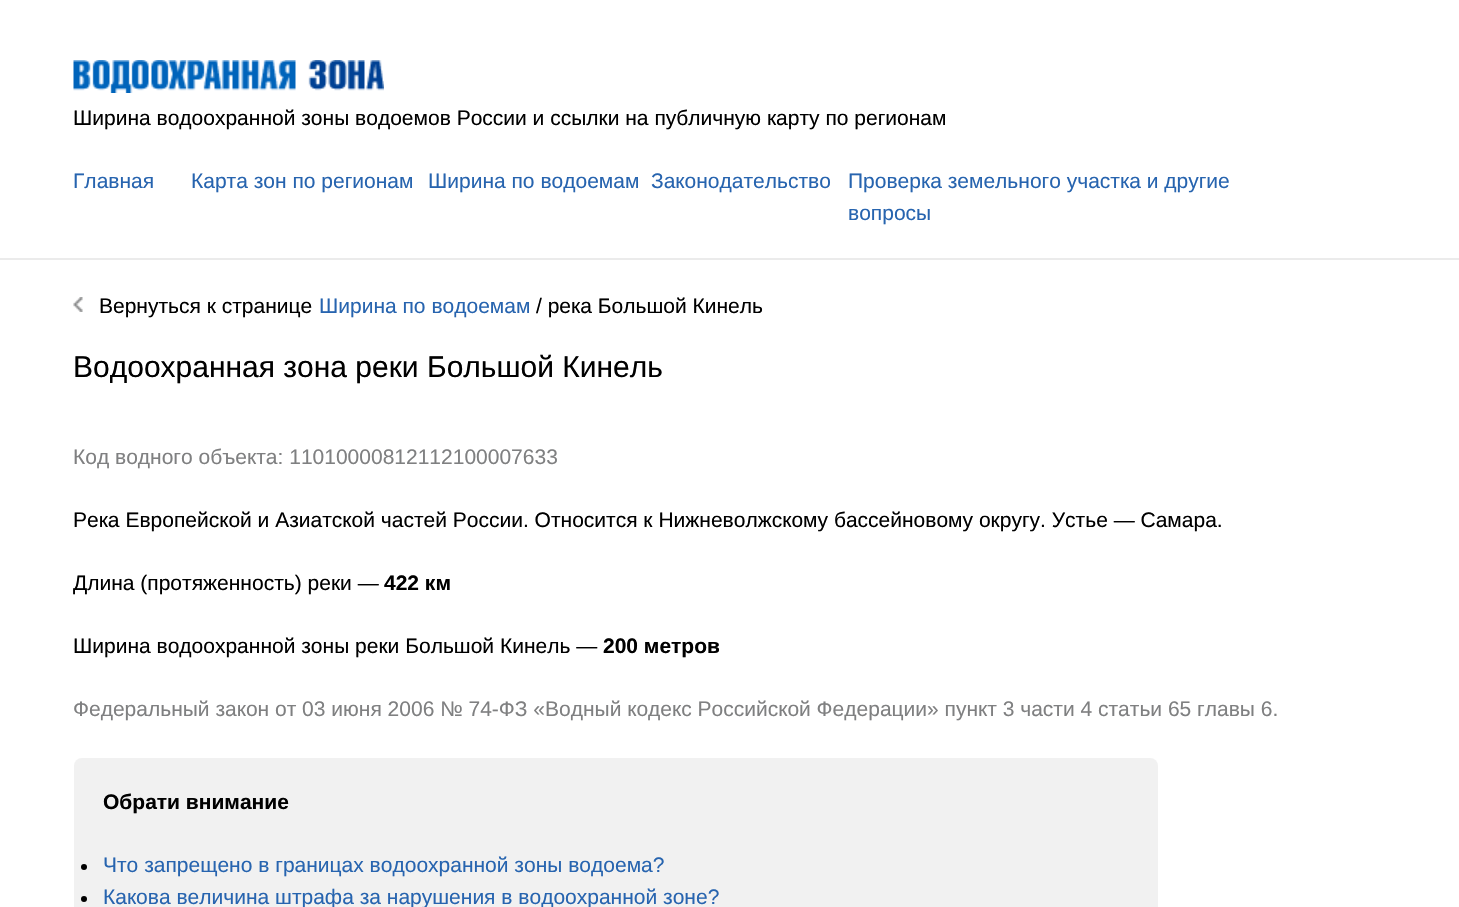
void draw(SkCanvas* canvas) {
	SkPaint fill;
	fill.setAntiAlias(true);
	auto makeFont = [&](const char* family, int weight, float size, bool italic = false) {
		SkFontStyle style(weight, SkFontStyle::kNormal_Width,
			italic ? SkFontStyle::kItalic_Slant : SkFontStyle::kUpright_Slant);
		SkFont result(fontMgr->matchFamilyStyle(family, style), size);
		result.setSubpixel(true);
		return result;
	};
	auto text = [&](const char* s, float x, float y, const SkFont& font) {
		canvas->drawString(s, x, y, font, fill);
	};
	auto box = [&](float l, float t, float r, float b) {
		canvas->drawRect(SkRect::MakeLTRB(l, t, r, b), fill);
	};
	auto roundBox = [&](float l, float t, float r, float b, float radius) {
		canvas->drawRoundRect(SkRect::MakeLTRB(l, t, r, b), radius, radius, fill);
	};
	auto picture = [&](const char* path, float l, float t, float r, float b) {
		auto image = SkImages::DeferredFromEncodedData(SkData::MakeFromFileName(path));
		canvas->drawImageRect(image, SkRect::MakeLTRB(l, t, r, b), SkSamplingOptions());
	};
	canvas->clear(0xFFFFFFFF);
	picture("image0.png", 73, 60, 384, 93);
	fill.setColor(0xFFEBEBEB);
	box(0, 258, 1459, 260);
	picture("image1.png", 73, 297, 83, 312);
	fill.setColor(0xFFF1F1F1);
	roundBox(74, 758, 1158, 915, 8);
	fill.setColor(0xFF000000);
	canvas->drawCircle(84, 867, 3, fill);
	canvas->drawCircle(84, 899, 3, fill);
	auto font1 = makeFont("Liberation Sans", 400, 21);
	text("Ширина водоохранной зоны водоемов России и ссылки на публичную карту по регионам", 73, 125, font1);
	fill.setColor(0xFF2764AF);
	text("Главная", 73, 188, font1);
	text("Карта зон по регионам", 191, 188, font1);
	text("Ширина по водоемам", 428, 188, font1);
	text("Законодательство", 651, 188, font1);
	text("Проверка земельного участка и другие", 848, 188, font1);
	text("вопросы", 848, 220, font1);
	fill.setColor(0xFF000000);
	text("Вернуться к странице", 99, 313, font1);
	fill.setColor(0xFF2764AF);
	text("Ширина по водоемам", 319, 313, font1);
	fill.setColor(0xFF000000);
	text("/ река Большой Кинель", 536, 313, font1);
	auto font2 = makeFont("Liberation Sans", 400, 30);
	text("Водоохранная зона реки Большой Кинель", 73, 377, font2);
	fill.setColor(0xFF7F8081);
	text("Код водного объекта: 11010000812112100007633", 73, 464, font1);
	fill.setColor(0xFF000000);
	text("Река Европейской и Азиатской частей России. Относится к Нижневолжскому бассейновому округу. Устье — Самара.", 73, 527, font1);
	text("Длина (протяженность) реки —", 73, 590, font1);
	auto font3 = makeFont("Liberation Sans", 700, 21);
	text("422 км", 384, 590, font3);
	text("Ширина водоохранной зоны реки Большой Кинель —", 73, 653, font1);
	text("200 метров", 603, 653, font3);
	fill.setColor(0xFF7F8081);
	text("Федеральный закон от 03 июня 2006 № 74-ФЗ «Водный кодекс Российской Федерации» пункт 3 части 4 статьи 65 главы 6.", 73, 716, font1);
	fill.setColor(0xFF000000);
	text("Обрати внимание", 103, 809, font3);
	fill.setColor(0xFF2764AF);
	text("Что запрещено в границах водоохранной зоны водоема?", 103, 872, font1);
	text("Какова величина штрафа за нарушения в водоохранной зоне?", 103, 904, font1);
}
